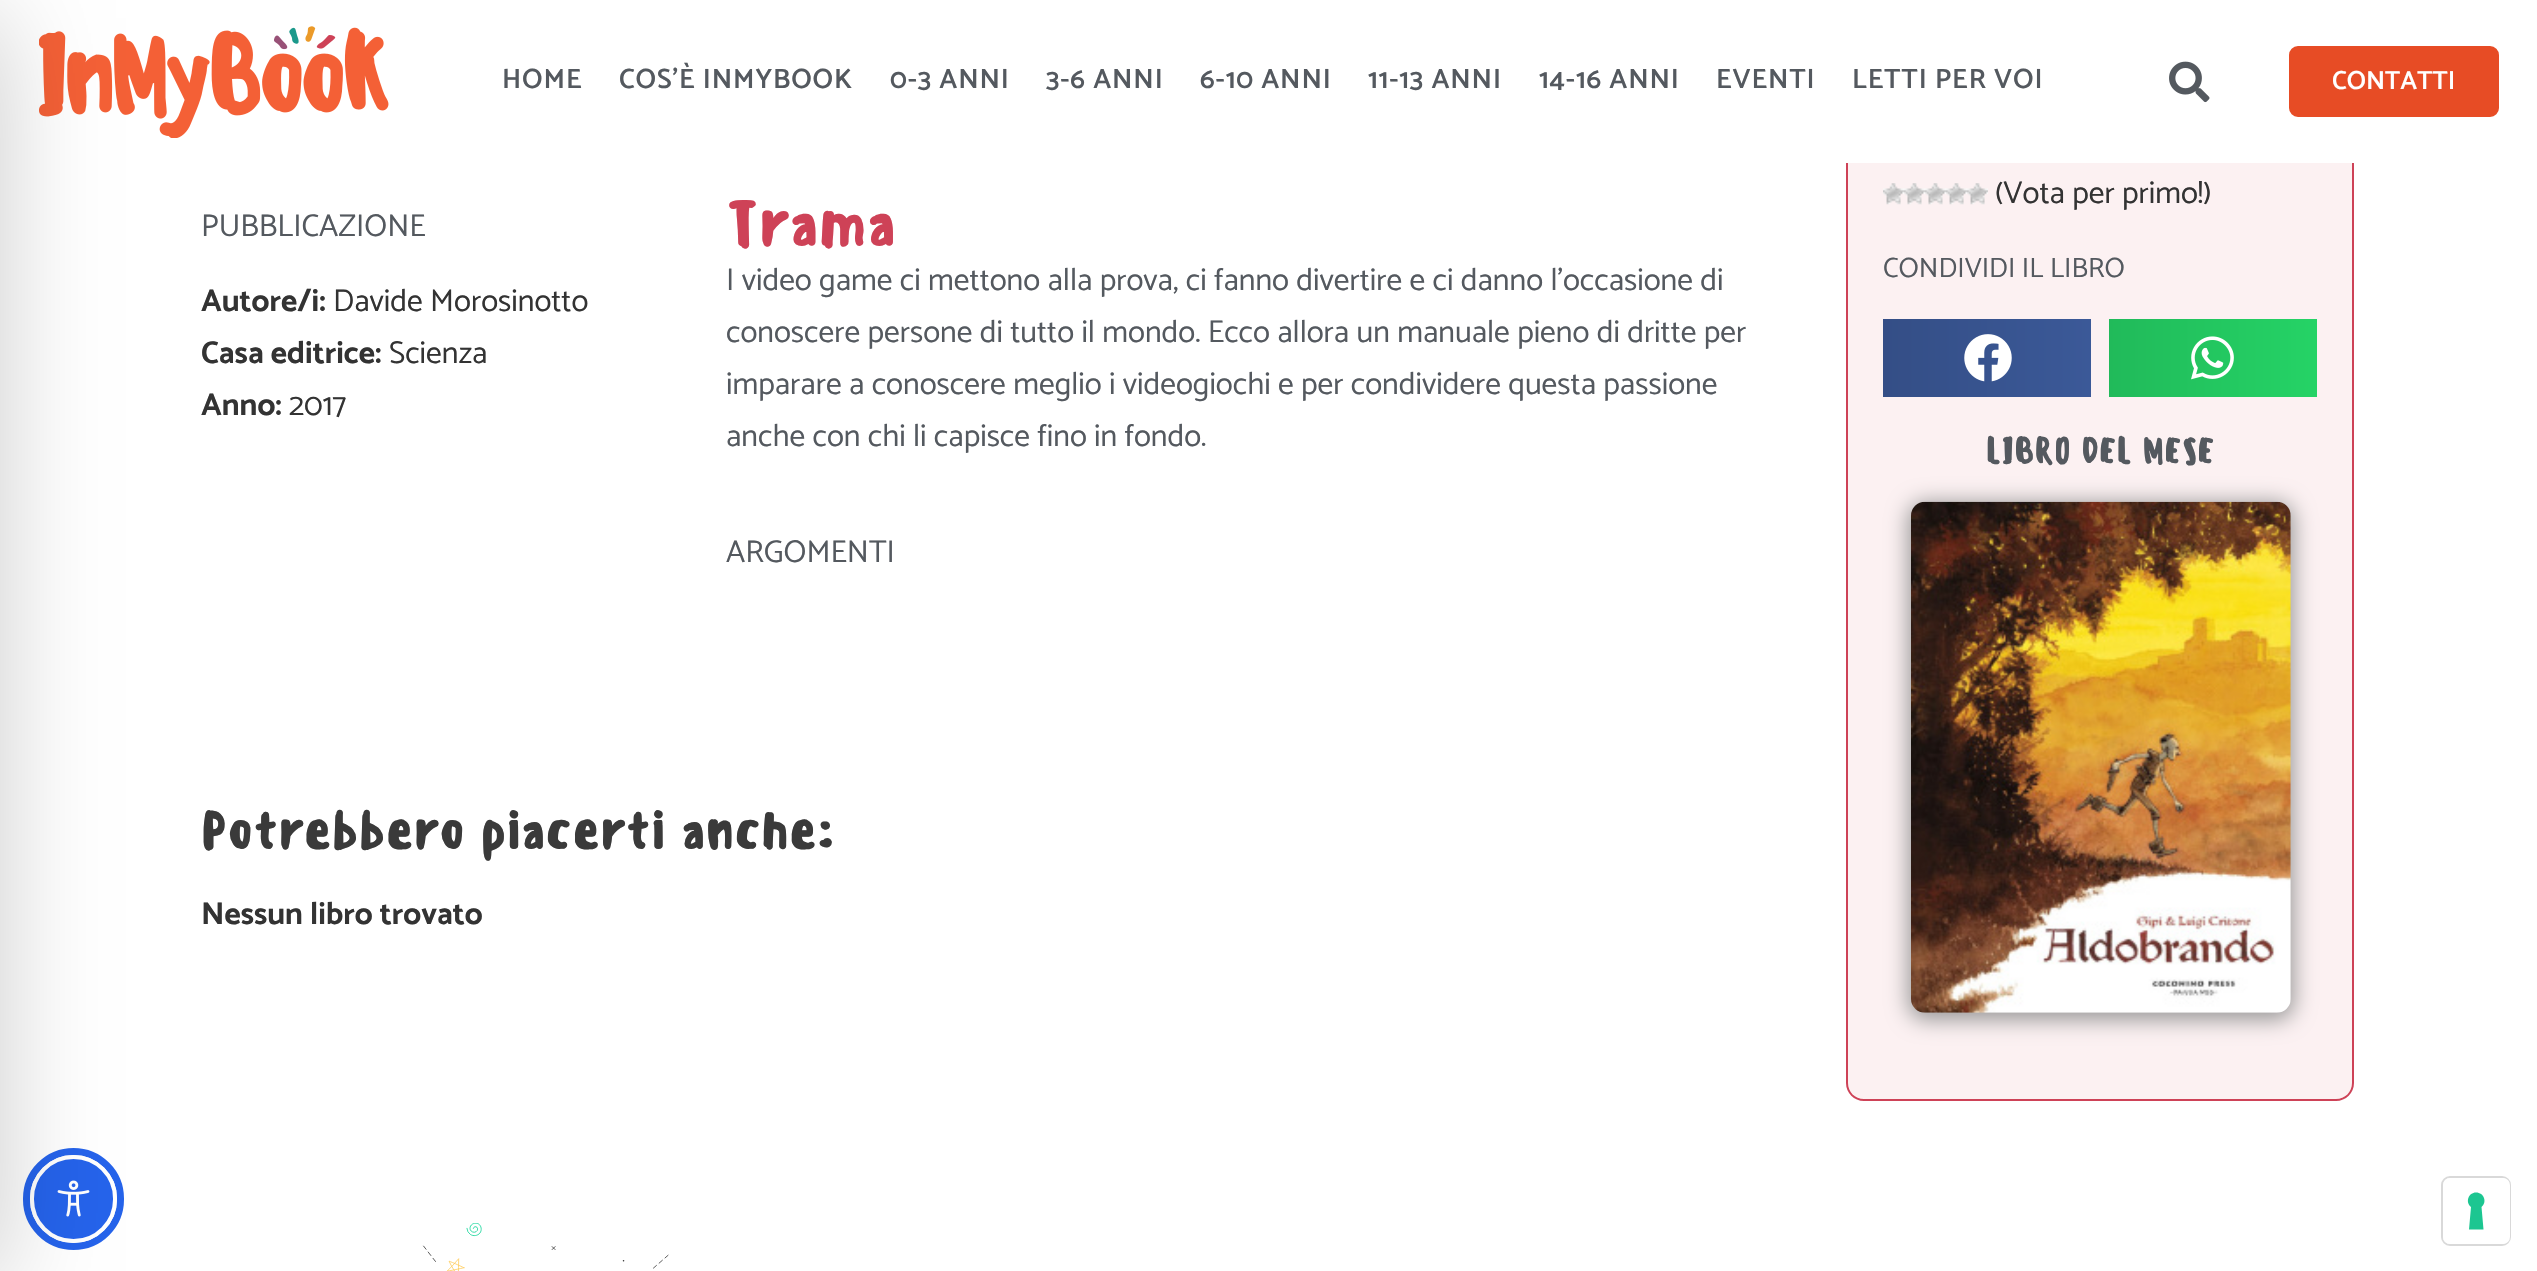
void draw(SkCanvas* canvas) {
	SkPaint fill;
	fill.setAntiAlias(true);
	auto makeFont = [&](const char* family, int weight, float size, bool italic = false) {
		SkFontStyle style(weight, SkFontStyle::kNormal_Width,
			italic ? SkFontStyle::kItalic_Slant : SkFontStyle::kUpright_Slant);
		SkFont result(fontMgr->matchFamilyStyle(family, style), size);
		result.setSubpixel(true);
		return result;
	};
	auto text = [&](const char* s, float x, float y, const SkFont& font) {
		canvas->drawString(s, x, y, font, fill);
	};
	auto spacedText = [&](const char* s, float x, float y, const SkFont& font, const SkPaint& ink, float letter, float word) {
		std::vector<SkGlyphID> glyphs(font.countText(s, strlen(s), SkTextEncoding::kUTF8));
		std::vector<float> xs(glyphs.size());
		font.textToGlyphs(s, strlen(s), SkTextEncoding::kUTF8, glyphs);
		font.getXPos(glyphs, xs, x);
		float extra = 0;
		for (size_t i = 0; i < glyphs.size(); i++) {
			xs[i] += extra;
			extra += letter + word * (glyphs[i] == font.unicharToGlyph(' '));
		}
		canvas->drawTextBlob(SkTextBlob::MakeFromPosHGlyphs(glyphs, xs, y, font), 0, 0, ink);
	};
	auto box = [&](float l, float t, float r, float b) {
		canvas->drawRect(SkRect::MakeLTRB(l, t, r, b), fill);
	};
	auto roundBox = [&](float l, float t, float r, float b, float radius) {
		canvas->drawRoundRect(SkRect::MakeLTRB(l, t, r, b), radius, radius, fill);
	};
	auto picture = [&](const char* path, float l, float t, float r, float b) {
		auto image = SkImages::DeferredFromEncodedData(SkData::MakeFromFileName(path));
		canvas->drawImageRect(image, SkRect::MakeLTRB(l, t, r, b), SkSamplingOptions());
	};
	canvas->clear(0xFFFFFFFF);
	picture("image0.png", 39, 26, 389, 138);
	fill.setStyle(SkPaint::kStroke_Style);
	fill.setStrokeWidth(7);
	fill.setColor(0xFF2563EB);
	canvas->drawRoundRect(SkRect::MakeLTRB(26.5f, 1151.5f, 120.5f, 1246.5f), 47, 47, fill);
	fill.setStyle(SkPaint::kFill_Style);
	canvas->drawRoundRect(SkRect::MakeLTRB(32, 1157, 115, 1241), 41.5f, 41.5f, fill);
	fill.setStyle(SkPaint::kStroke_Style);
	fill.setStrokeWidth(4);
	fill.setColor(0xFFFFFFFF);
	canvas->drawRoundRect(SkRect::MakeLTRB(32, 1157, 115, 1241), 41.5f, 41.5f, fill);
	picture("image8.png", 57, 1180, 90, 1217);
	fill.setStyle(SkPaint::kFill_Style);
	fill.setColor(0x33000000);
	fill.setMaskFilter(SkMaskFilter::MakeBlur(kNormal_SkBlurStyle, 52.5f));
	canvas->drawRect(SkRect::MakeLTRB(-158, 18, 0, 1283), fill);
	fill.setMaskFilter(nullptr);
	fill.setColor(0xFFFCF1F2);
	canvas->drawPath(SkPathBuilder().moveTo(1848, 72).lineTo(2352, 72).lineTo(2352, 1083).cubicTo(2352, 1092, 2345, 1099, 2336, 1099).lineTo(1864, 1099).cubicTo(1855, 1099, 1848, 1092, 1848, 1083).close().detach(), fill);
	fill.setColor(0xFFCE4257);
	canvas->drawPath(SkPathBuilder(SkPathFillType::kEvenOdd).moveTo(1846, 72).lineTo(2354, 72).lineTo(2354, 1083).cubicTo(2354, 1093, 2346, 1101, 2336, 1101).lineTo(1864, 1101).cubicTo(1854, 1101, 1846, 1093, 1846, 1083).close().moveTo(1848, 72).lineTo(2352, 72).lineTo(2352, 1083).cubicTo(2352, 1092, 2345, 1099, 2336, 1099).lineTo(1864, 1099).cubicTo(1855, 1099, 1848, 1092, 1848, 1083).close().detach(), fill);
	fill.setColor(0xFFFFFFFF);
	box(1846, 72, 2354, 163);
	picture("image1.png", 2169, 61, 2210, 103);
	fill.setColor(0xFFE74C25);
	canvas->drawRoundRect(SkRect::MakeLTRB(2290, 47, 2498, 116), 8, 8, fill);
	fill.setStyle(SkPaint::kStroke_Style);
	fill.setStrokeWidth(2);
	canvas->drawRoundRect(SkRect::MakeLTRB(2290, 47, 2498, 116), 8, 8, fill);
	picture("image2.png", 1883, 183, 1904, 205);
	picture("image3.png", 1904, 183, 1925, 205);
	picture("image3.png", 1925, 183, 1946, 205);
	picture("image2.png", 1946, 183, 1967, 205);
	picture("image2.png", 1967, 183, 1988, 205);
	fill.setStyle(SkPaint::kFill_Style);
	{
		const SkColor colors[] = {0xFF344E86, 0xFF3B5998};
		const float stops[] = {0, 1};
		const SkPoint ends[] = {{1883, 358}, {2091, 358}};
		fill.setShader(SkGradientShader::MakeLinear(ends, colors, stops, 2, SkTileMode::kClamp));
		fill.setAlpha(255);
	}
	box(1883, 319, 2091, 397);
	picture("image4.png", 1964, 334, 2012, 382);
	{
		const SkColor colors[] = {0xFF21BA5A, 0xFF25D366};
		const float stops[] = {0, 1};
		const SkPoint ends[] = {{2109, 358}, {2317, 358}};
		fill.setShader(SkGradientShader::MakeLinear(ends, colors, stops, 2, SkTileMode::kClamp));
		fill.setAlpha(255);
	}
	box(2109, 319, 2317, 397);
	picture("image5.png", 2191, 336, 2234, 380);
	fill.setShader(nullptr);
	fill.setColor(0xFF999999);
	fill.setMaskFilter(SkMaskFilter::MakeBlur(kNormal_SkBlurStyle, 10.5f));
	canvas->drawRoundRect(SkRect::MakeLTRB(1908, 502, 2294, 1020), 18, 18, fill);
	fill.setMaskFilter(nullptr);
	picture("image6.png", 1911, 501, 2291, 1013);
	picture("image7.png", 422, 1223, 669, 1271);
	fill.setStyle(SkPaint::kStroke_Style);
	fill.setColor(0xFFD9D9D9);
	canvas->drawRoundRect(SkRect::MakeLTRB(2442, 1177, 2510, 1245), 8, 8, fill);
	fill.setStyle(SkPaint::kFill_Style);
	fill.setColor(0xFFFFFFFF);
	roundBox(2443, 1178, 2510, 1244, 7);
	fill.setColor(0xFF1CC691);
	canvas->drawPath(SkPathBuilder(SkPathFillType::kEvenOdd).moveTo(2476, 1192.5f).cubicTo(2484, 1192.5f, 2487.5f, 1202, 2481.5f, 1207).lineTo(2483.5f, 1229.5f).lineTo(2469, 1229.5f).lineTo(2471, 1207).cubicTo(2465, 1202, 2468.5f, 1192.5f, 2476, 1192.5f).close().detach(), fill);
	auto font1 = makeFont("Catamaran", 600, 28);
	fill.setColor(0xFF54595F);
	spacedText("HOME", 502, 88, font1, fill, 0.9f, 0);
	spacedText("COS’È INMYBOOK", 619, 88, font1, fill, 0.9f, 0);
	spacedText("0-3 ANNI", 890, 88, font1, fill, 0.9f, 0);
	spacedText("3-6 ANNI", 1046, 88, font1, fill, 0.9f, 0);
	spacedText("6-10 ANNI", 1200, 88, font1, fill, 0.9f, 0);
	spacedText("11-13 ANNI", 1368, 88, font1, fill, 0.9f, 0);
	spacedText("14-16 ANNI", 1539, 88, font1, fill, 0.9f, 0);
	spacedText("EVENTI", 1716, 88, font1, fill, 0.9f, 0);
	spacedText("LETTI PER VOI", 1852, 88, font1, fill, 0.9f, 0);
	auto font2 = makeFont("Catamaran", 600, 26.25f);
	fill.setColor(0xFFFFFFFF);
	text("CONTATTI", 2332, 89, font2);
	auto font3 = makeFont("Catamaran", 400, 31.5f);
	fill.setColor(0xFF54595F);
	text("PUBBLICAZIONE", 201, 236, font3);
	auto font4 = makeFont("Catamaran", 700, 31.5f);
	fill.setColor(0xFF333333);
	text("Autore/i:", 201, 311, font4);
	text("Davide Morosinotto", 333, 311, font3);
	text("Casa editrice:", 201, 363, font4);
	text("Scienza", 389, 363, font3);
	text("Anno:", 201, 415, font4);
	text("2017", 289, 415, font3);
	auto font5 = makeFont("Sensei", 500, 63);
	fill.setColor(0xFFCE4257);
	text("Trama", 726, 246, font5);
	fill.setColor(0xFF54595F);
	text("I video game ci mettono alla prova, ci fanno divertire e ci danno l’occasione di", 726, 290, font3);
	text("conoscere persone di tutto il mondo. Ecco allora un manuale pieno di dritte per", 726, 342, font3);
	text("imparare a conoscere meglio i videogiochi e per condividere questa passione", 726, 394, font3);
	text("anche con chi li capisce fino in fondo.", 726, 446, font3);
	text("ARGOMENTI", 726, 562, font3);
	auto font6 = makeFont("Sensei", 500, 52.5f);
	fill.setColor(0xFF3A3A3A);
	text("Potrebbero piacerti anche:", 201, 849, font6);
	fill.setColor(0xFF333333);
	text("Nessun libro trovato", 201, 924, font4);
	text("(Vota per primo!)", 1995, 203, font3);
	auto font7 = makeFont("Catamaran", 400, 28);
	fill.setColor(0xFF54595F);
	text("CONDIVIDI IL LIBRO", 1883, 277, font7);
	auto font8 = makeFont("Sensei", 500, 35);
	text("LIBRO DEL MESE", 1986, 463, font8);
}
